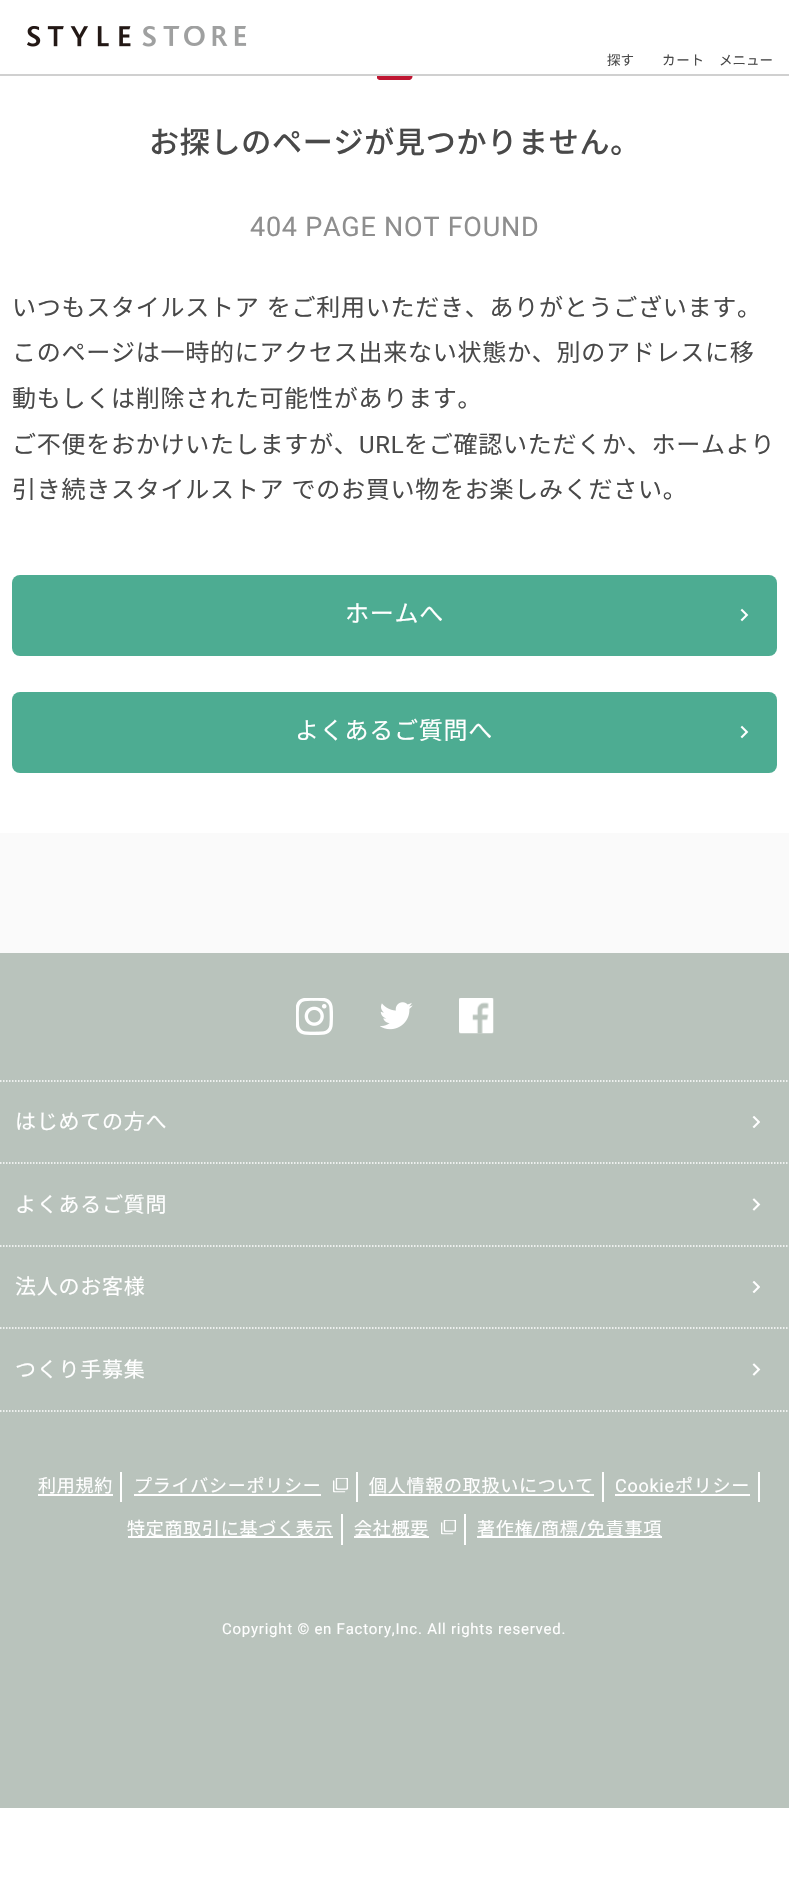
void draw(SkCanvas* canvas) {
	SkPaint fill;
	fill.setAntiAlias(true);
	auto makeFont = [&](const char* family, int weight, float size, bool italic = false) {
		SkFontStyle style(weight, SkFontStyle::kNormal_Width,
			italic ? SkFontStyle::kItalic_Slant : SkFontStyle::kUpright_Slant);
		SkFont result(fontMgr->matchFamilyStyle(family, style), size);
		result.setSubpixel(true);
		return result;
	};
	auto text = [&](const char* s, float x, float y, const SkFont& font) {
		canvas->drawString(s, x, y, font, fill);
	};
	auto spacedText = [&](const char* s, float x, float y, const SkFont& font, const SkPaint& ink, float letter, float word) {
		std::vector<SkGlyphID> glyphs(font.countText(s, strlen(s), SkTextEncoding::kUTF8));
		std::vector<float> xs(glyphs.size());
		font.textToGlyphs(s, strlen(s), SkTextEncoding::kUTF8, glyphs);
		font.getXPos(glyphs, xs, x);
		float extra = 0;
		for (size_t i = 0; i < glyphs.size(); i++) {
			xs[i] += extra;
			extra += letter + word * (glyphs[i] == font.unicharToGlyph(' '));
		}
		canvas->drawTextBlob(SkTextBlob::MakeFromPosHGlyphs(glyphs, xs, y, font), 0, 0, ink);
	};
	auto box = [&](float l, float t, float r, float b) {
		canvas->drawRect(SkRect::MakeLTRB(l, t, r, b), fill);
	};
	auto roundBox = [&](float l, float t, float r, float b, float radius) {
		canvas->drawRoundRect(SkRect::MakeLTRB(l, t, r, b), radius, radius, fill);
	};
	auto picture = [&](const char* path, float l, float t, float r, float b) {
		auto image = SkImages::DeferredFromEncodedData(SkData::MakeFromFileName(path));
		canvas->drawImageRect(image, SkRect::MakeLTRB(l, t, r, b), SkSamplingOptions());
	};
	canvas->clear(0xFFFFFFFF);
	fill.setColor(0xFFFAFAFA);
	box(0, 833, 789, 953);
	fill.setColor(0xFFD0D0D0);
	box(0, 74, 789, 76);
	picture("image0.png", 27, 26, 247, 47);
	picture("image1.png", 377, 76, 413, 80);
	fill.setColor(0xFF4DAC92);
	roundBox(12, 575, 777, 656, 8);
	picture("image2.png", 740, 608, 749, 622);
	roundBox(12, 692, 777, 773, 8);
	picture("image2.png", 740, 725, 749, 739);
	fill.setColor(0xFFB9C3BC);
	box(0, 953, 789, 1808);
	picture("image3.png", 296, 998, 333, 1035);
	picture("image4.png", 380, 1002, 413, 1030);
	picture("image5.png", 459, 998, 494, 1034);
	fill.setStyle(SkPaint::kStroke_Style);
	fill.setStrokeWidth(1.5f);
	fill.setColor(0xFFFFFFFF);
	fill.setPathEffect(SkDashPathEffect::Make({{1.5f, 1.5f}}, 0));
	canvas->drawPath(SkPathBuilder().moveTo(0, 1081).lineTo(789, 1081).detach(), fill);
	fill.setPathEffect(nullptr);
	fill.setPathEffect(SkDashPathEffect::Make({{1.5f, 1.5f}}, 0));
	canvas->drawPath(SkPathBuilder().moveTo(0, 1163).lineTo(789, 1163).detach(), fill);
	fill.setPathEffect(nullptr);
	picture("image6.png", 752, 1116, 760, 1128);
	fill.setPathEffect(SkDashPathEffect::Make({{1.5f, 1.5f}}, 0));
	canvas->drawPath(SkPathBuilder().moveTo(0, 1246).lineTo(789, 1246).detach(), fill);
	fill.setPathEffect(nullptr);
	picture("image7.png", 752, 1198, 761, 1211);
	fill.setPathEffect(SkDashPathEffect::Make({{1.5f, 1.5f}}, 0));
	canvas->drawPath(SkPathBuilder().moveTo(0, 1328).lineTo(789, 1328).detach(), fill);
	fill.setPathEffect(nullptr);
	picture("image6.png", 752, 1281, 760, 1293);
	fill.setPathEffect(SkDashPathEffect::Make({{1.5f, 1.5f}}, 0));
	canvas->drawPath(SkPathBuilder().moveTo(0, 1411).lineTo(789, 1411).detach(), fill);
	fill.setPathEffect(nullptr);
	picture("image7.png", 752, 1363, 761, 1376);
	fill.setStyle(SkPaint::kFill_Style);
	box(120, 1472, 122, 1502);
	box(38, 1494, 113, 1496);
	box(356, 1472, 358, 1502);
	box(134, 1494, 321, 1496);
	picture("image8.png", 333, 1478, 348, 1493);
	box(602, 1472, 604, 1502);
	box(369, 1494, 594, 1496);
	box(758, 1472, 760, 1502);
	box(615, 1494, 750, 1496);
	box(341, 1514, 343, 1545);
	box(128, 1536, 333, 1538);
	box(464, 1514, 466, 1545);
	box(354, 1536, 429, 1538);
	picture("image8.png", 441, 1520, 456, 1535);
	box(477, 1536, 662, 1538);
	auto font1 = makeFont("Noto Sans JP", 400, 13.5f);
	fill.setColor(0xFF494949);
	text("探す", 607, 65, font1);
	spacedText("カート", 662, 65, font1, fill, 0.75f, 0);
	text("メニュー", 719, 65, font1);
	auto font2 = makeFont("Noto Sans JP", 500, 30);
	spacedText("お探しのページが見つかりません。", 149, 153, font2, fill, 0.75f, 0);
	auto font3 = makeFont("Roboto", 400, 27);
	fill.setColor(0xFF8E8E8E);
	spacedText("404 PAGE NOT FOUND", 250, 236, font3, fill, 0.75f, 0);
	auto font4 = makeFont("Noto Sans JP", 400, 24);
	fill.setColor(0xFF494949);
	spacedText("いつもスタイルストア をご利用いただき、ありがとうございます。", 12, 316, font4, fill, 0.75f, 1);
	spacedText("このページは一時的にアクセス出来ない状態か、別のアドレスに移", 12, 361, font4, fill, 0.75f, 0);
	spacedText("動もしくは削除された可能性があります。", 12, 407, font4, fill, 0.75f, 0);
	spacedText("ご不便をおかけいたしますが、", 12, 453, font4, fill, 0.75f, 0);
	auto font5 = makeFont("Roboto", 400, 24);
	spacedText("URL", 359, 453, font5, fill, 0.75f, 0);
	spacedText("をご確認いただくか、ホームより", 404, 453, font4, fill, 0.75f, 0);
	spacedText("引き続きスタイルストア でのお買い物をお楽しみください。", 12, 498, font4, fill, 0.75f, 1);
	fill.setColor(0xFFFFFFFF);
	spacedText("ホームへ", 345, 622, font4, fill, 0.75f, 0);
	spacedText("よくあるご質問へ", 295, 739, font4, fill, 0.75f, 0);
	auto font6 = makeFont("Noto Sans JP", 400, 21);
	spacedText("はじめての方へ", 15, 1129, font6, fill, 0.75f, 0);
	spacedText("よくあるご質問", 15, 1212, font6, fill, 0.75f, 0);
	spacedText("法人のお客様", 15, 1294, font6, fill, 0.75f, 0);
	spacedText("つくり手募集", 15, 1377, font6, fill, 0.75f, 0);
	auto font7 = makeFont("Noto Sans JP", 400, 18);
	spacedText("利用規約", 38, 1492, font7, fill, 0.75f, 0);
	spacedText("プライバシーポリシー", 134, 1492, font7, fill, 0.75f, 0);
	spacedText("個人情報の取扱いについて", 369, 1492, font7, fill, 0.75f, 0);
	auto font8 = makeFont("Roboto", 400, 18);
	spacedText("Cookie", 615, 1492, font8, fill, 0.75f, 0);
	spacedText("ポリシー", 675, 1492, font7, fill, 0.75f, 0);
	spacedText("特定商取引に基づく表示", 127, 1535, font7, fill, 0.75f, 0);
	spacedText("会社概要", 354, 1535, font7, fill, 0.75f, 0);
	spacedText("著作権", 477, 1535, font7, fill, 0.75f, 0);
	spacedText("/", 533, 1535, font8, fill, 0.75f, 0);
	spacedText("商標", 541, 1535, font7, fill, 0.75f, 0);
	spacedText("/", 579, 1535, font8, fill, 0.75f, 0);
	spacedText("免責事項", 587, 1535, font7, fill, 0.75f, 0);
	auto font9 = makeFont("Roboto", 400, 15);
	spacedText("Copyright © en Factory,Inc. All rights reserved.", 222, 1634, font9, fill, 0.75f, 0);
}
